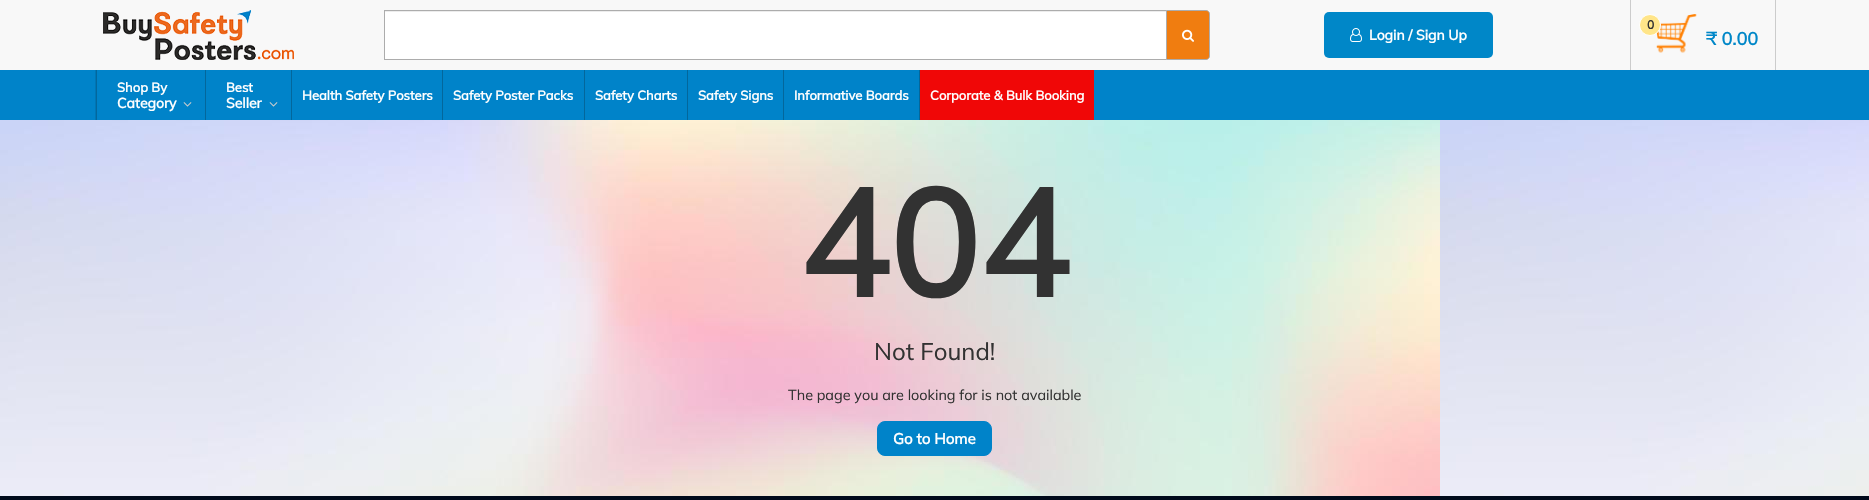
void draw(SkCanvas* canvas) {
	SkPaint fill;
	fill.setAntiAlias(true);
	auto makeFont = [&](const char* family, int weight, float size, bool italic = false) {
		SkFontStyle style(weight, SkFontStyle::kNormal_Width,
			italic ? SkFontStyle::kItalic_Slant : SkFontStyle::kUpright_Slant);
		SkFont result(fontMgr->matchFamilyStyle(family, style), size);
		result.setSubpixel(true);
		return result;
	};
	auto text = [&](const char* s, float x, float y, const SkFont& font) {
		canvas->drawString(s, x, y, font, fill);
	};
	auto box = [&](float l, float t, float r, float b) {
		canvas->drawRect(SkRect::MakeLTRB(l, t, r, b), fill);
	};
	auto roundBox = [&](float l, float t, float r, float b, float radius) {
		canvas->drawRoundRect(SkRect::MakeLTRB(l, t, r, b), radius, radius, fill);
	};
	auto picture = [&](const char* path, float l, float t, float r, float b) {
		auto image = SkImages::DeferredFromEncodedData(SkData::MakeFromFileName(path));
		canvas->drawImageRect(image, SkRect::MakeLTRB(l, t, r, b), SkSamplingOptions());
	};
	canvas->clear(0xFF000A1B);
	fill.setColor(0xFFF8F8F8);
	box(0, 0, 1869, 70);
	picture("image0.png", 103, 10, 294, 60);
	fill.setColor(0xFFFFFFFF);
	box(385, 12, 1166, 59);
	fill.setColor(0xFFECECEC);
	box(385, 11, 1166, 12);
	fill.setColor(0xFFACACAC);
	box(384, 10, 1166, 11);
	box(384, 59, 1166, 60);
	box(384, 10, 385, 60);
	fill.setColor(0xFFF07D10);
	canvas->drawPath(SkPathBuilder().moveTo(1166.5f, 10.5f).lineTo(1206, 10.5f).cubicTo(1208, 10.5f, 1209.5f, 12, 1209.5f, 14).lineTo(1209.5f, 56).cubicTo(1209.5f, 58, 1208, 59.5f, 1206, 59.5f).lineTo(1166.5f, 59.5f).close().detach(), fill);
	fill.setStyle(SkPaint::kStroke_Style);
	fill.setStrokeWidth(1);
	fill.setColor(0xFFACACAC);
	canvas->drawPath(SkPathBuilder().moveTo(1166.5f, 10.5f).lineTo(1206, 10.5f).cubicTo(1208, 10.5f, 1209.5f, 12, 1209.5f, 14).lineTo(1209.5f, 56).cubicTo(1209.5f, 58, 1208, 59.5f, 1206, 59.5f).lineTo(1166.5f, 59.5f).close().detach(), fill);
	picture("image1.png", 1182, 29, 1194, 42);
	fill.setStyle(SkPaint::kFill_Style);
	fill.setColor(0xFF0087C8);
	roundBox(1324, 12, 1493, 58, 5);
	picture("image2.png", 1350, 28, 1362, 42);
	fill.setColor(0xFFCCCCCC);
	box(1775, 0, 1776, 70);
	box(1630, 0, 1631, 70);
	picture("image3.png", 1656, 14, 1697, 53);
	fill.setColor(0xFFFFE589);
	canvas->drawCircle(1650, 25, 10.5f, fill);
	fill.setStyle(SkPaint::kStroke_Style);
	fill.setColor(0xFFFFFFFF);
	canvas->drawCircle(1650, 25, 10.5f, fill);
	fill.setStyle(SkPaint::kFill_Style);
	fill.setColor(0xFF0083C9);
	box(0, 70, 1869, 120);
	fill.setColor(0xFF0076B5);
	box(95, 70, 96, 120);
	fill.setColor(0xFF03679C);
	box(96, 70, 97, 120);
	picture("image4.png", 183, 102, 192, 107);
	box(205, 70, 206, 120);
	picture("image4.png", 269, 102, 278, 107);
	box(291, 70, 292, 120);
	box(442, 70, 443, 120);
	box(584, 70, 585, 120);
	box(687, 70, 688, 120);
	box(783, 70, 784, 120);
	fill.setColor(0xFFF00707);
	box(920, 70, 1094, 120);
	fill.setColor(0xFF03679C);
	box(919, 70, 920, 120);
	picture("image5.png", 0, 120, 1869, 496);
	fill.setColor(0xFF0083C9);
	canvas->drawRoundRect(SkRect::MakeLTRB(877.5f, 421.5f, 991.5f, 455.5f), 7.5f, 7.5f, fill);
	fill.setStyle(SkPaint::kStroke_Style);
	canvas->drawRoundRect(SkRect::MakeLTRB(877.5f, 421.5f, 991.5f, 455.5f), 7.5f, 7.5f, fill);
	auto font1 = makeFont("Mulish", 700, 14);
	fill.setStyle(SkPaint::kFill_Style);
	fill.setColor(0xFFFFFFFF);
	text("Login / Sign Up", 1369, 40, font1);
	auto font2 = makeFont("Mulish", 700, 12);
	fill.setColor(0xFF323232);
	text("0", 1647, 29, font2);
	auto font3 = makeFont("Mulish", 700, 18);
	fill.setColor(0xFF0087C8);
	text("₹ 0.00", 1706, 45, font3);
	auto font4 = makeFont("Mulish", 700, 13);
	fill.setColor(0xFFFFFFFF);
	text("Shop By", 117, 92, font4);
	text("Category", 117, 108, font1);
	text("Best", 226, 92, font4);
	text("Seller", 226, 108, font1);
	text("Health Safety Posters", 302, 100, font4);
	text("Safety Poster Packs", 453, 100, font4);
	text("Safety Charts", 595, 100, font4);
	text("Safety Signs", 698, 100, font4);
	text("Informative Boards", 794, 100, font4);
	text("Corporate & Bulk Booking", 930, 100, font4);
	auto font5 = makeFont("Mulish", 700, 150);
	fill.setColor(0xFF323232);
	text("404", 799, 297, font5);
	auto font6 = makeFont("Mulish", 400, 24);
	text("Not Found!", 874, 360, font6);
	auto font7 = makeFont("Mulish", 400, 14.4f);
	text("The page you are looking for is not available", 788, 400, font7);
	auto font8 = makeFont("Mulish", 700, 15);
	fill.setColor(0xFFFFFFFF);
	text("Go to Home", 893, 444, font8);
}
